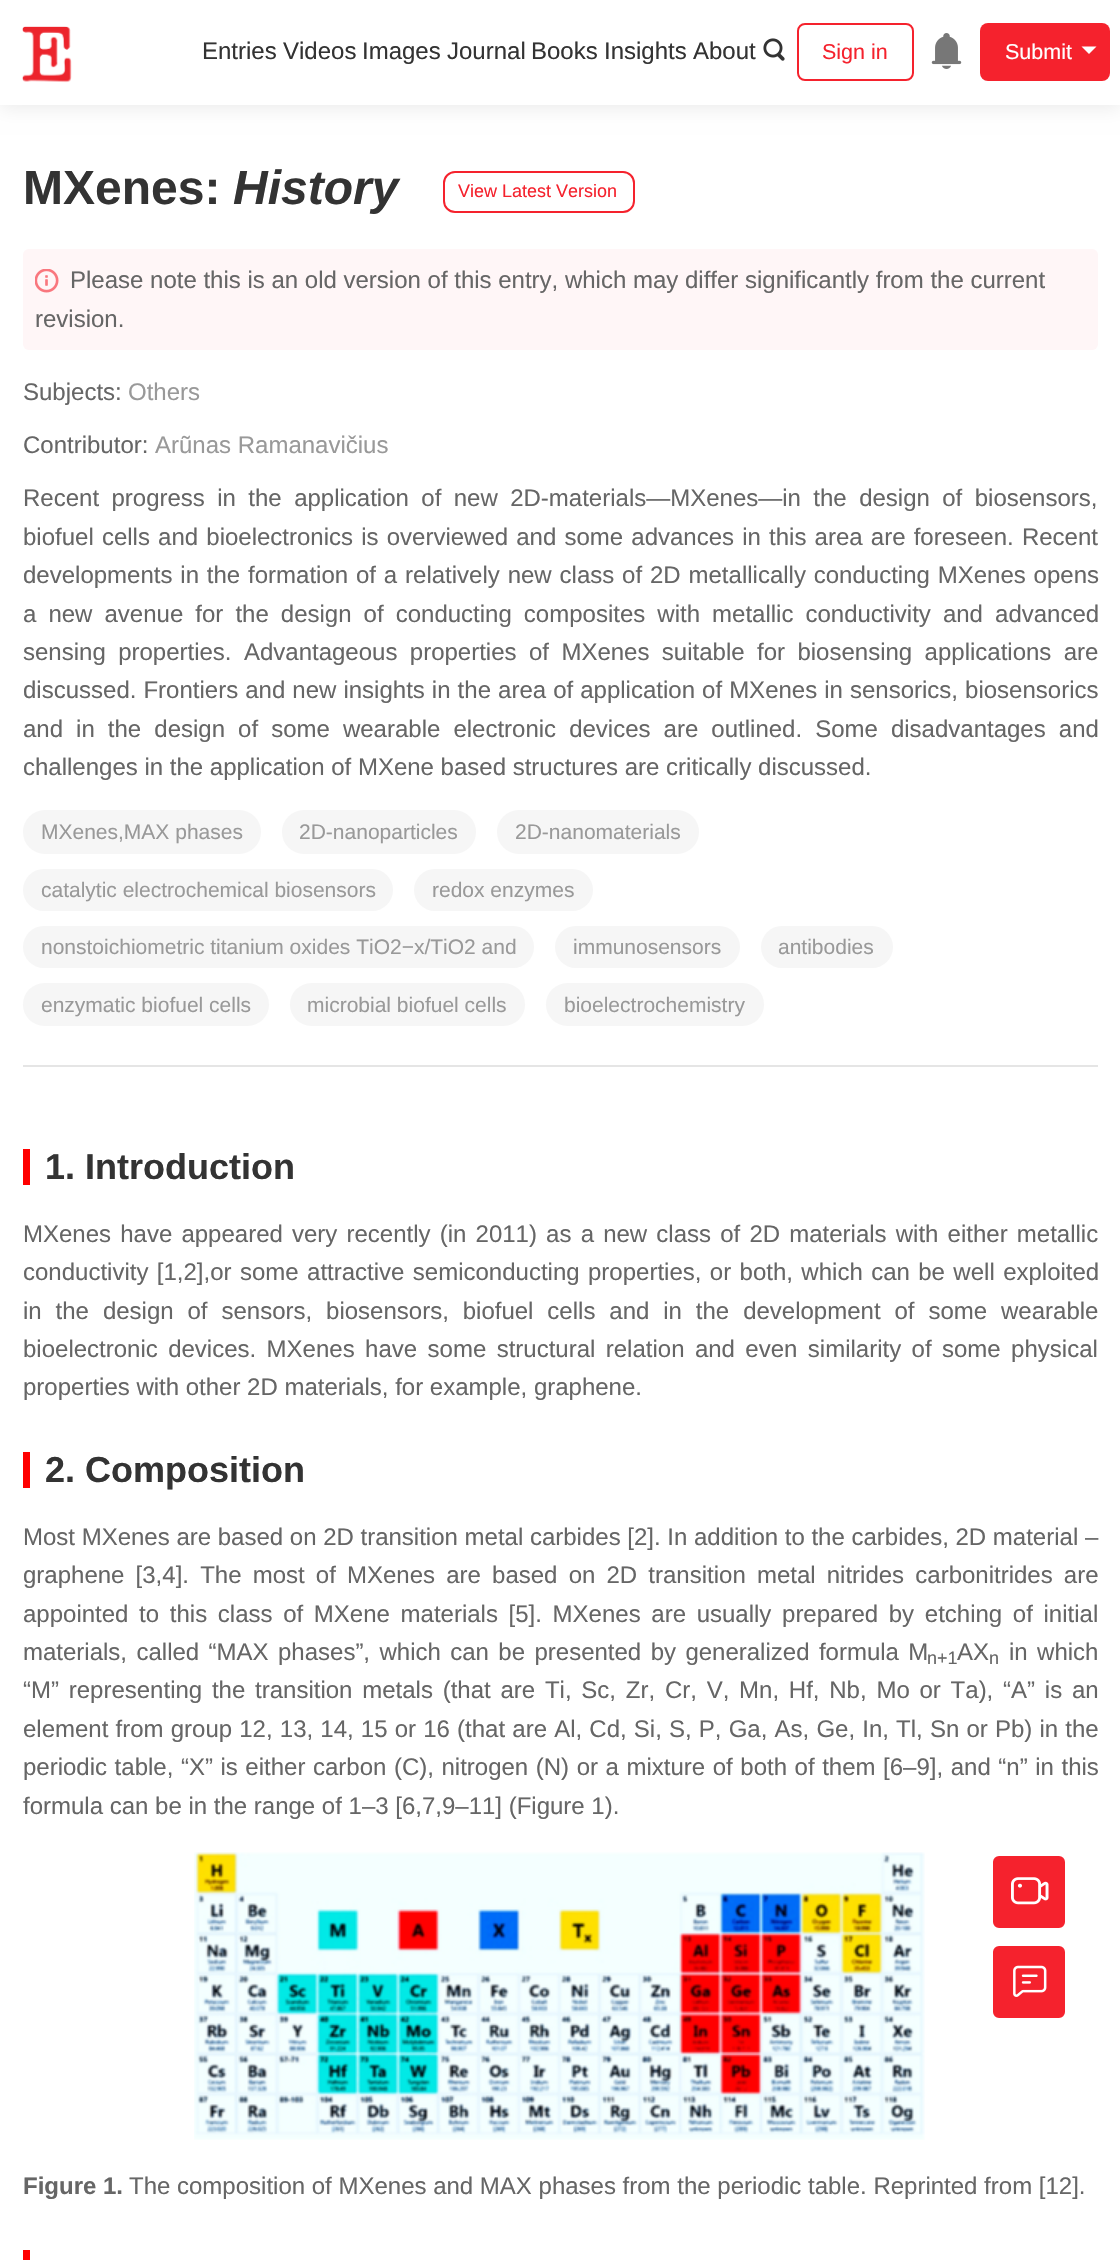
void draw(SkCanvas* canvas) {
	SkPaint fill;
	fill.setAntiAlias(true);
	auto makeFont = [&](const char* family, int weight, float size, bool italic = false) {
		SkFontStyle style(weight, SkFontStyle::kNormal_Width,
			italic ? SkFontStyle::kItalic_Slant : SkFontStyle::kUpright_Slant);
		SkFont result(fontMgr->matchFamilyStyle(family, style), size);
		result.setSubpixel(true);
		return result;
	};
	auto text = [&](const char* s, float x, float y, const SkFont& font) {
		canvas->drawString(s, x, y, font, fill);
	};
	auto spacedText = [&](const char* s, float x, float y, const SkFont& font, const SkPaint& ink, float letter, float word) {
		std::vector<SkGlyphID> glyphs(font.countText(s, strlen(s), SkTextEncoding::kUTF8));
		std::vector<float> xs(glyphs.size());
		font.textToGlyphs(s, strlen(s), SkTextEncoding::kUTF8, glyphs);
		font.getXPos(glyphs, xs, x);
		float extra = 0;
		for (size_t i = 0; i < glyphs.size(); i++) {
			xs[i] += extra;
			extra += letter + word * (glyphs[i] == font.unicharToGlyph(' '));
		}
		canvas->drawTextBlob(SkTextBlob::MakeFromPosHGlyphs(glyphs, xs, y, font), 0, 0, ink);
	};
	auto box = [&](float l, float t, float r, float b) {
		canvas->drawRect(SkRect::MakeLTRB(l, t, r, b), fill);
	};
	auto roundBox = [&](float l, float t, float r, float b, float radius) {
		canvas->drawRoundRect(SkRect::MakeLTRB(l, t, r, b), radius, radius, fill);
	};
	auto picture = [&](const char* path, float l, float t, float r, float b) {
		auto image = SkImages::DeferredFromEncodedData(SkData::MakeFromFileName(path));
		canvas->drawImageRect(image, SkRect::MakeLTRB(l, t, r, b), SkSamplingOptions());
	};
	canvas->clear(0xFFFFFFFF);
	fill.setColor(0x14000000);
	fill.setMaskFilter(SkMaskFilter::MakeBlur(kNormal_SkBlurStyle, 9));
	canvas->drawRect(SkRect::MakeLTRB(0, 3, 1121, 108), fill);
	fill.setMaskFilter(nullptr);
	fill.setColor(0xFFFFFFFF);
	box(0, 0, 1120, 105);
	picture("image0.png", 22, 26, 72, 83);
	picture("image1.png", 763, 38, 785, 61);
	fill.setStyle(SkPaint::kStroke_Style);
	fill.setStrokeWidth(2);
	fill.setColor(0xFFF5222D);
	canvas->drawRoundRect(SkRect::MakeLTRB(798, 24, 913, 80), 7, 7, fill);
	picture("image2.png", 931, 33, 962, 69);
	fill.setStyle(SkPaint::kFill_Style);
	roundBox(980, 23, 1110, 81, 8);
	fill.setColor(0xFFFFFFFF);
	canvas->drawPath(SkPathBuilder().moveTo(1081.5f, 46.5f).lineTo(1096.5f, 46.5f).lineTo(1089, 54).close().detach(), fill);
	fill.setStyle(SkPaint::kStroke_Style);
	fill.setColor(0xFFF5222D);
	canvas->drawRoundRect(SkRect::MakeLTRB(444, 172, 634, 212), 11, 11, fill);
	fill.setStyle(SkPaint::kFill_Style);
	fill.setColor(0xFFFFF6F7);
	roundBox(23, 249, 1098, 350, 6);
	picture("image3.png", 35, 269, 59, 293);
	fill.setColor(0xFFF6F6F6);
	roundBox(23, 810, 261, 854, 22);
	roundBox(282, 810, 476, 854, 22);
	roundBox(497, 810, 699, 854, 22);
	roundBox(23, 869, 393, 911, 21);
	roundBox(414, 869, 593, 911, 21);
	roundBox(23, 926, 534, 968, 21);
	roundBox(555, 926, 740, 968, 21);
	roundBox(761, 926, 893, 968, 21);
	roundBox(23, 983, 269, 1026, 21.5f);
	roundBox(290, 983, 525, 1026, 21.5f);
	roundBox(546, 983, 764, 1026, 21.5f);
	fill.setColor(0xFFE5E5E5);
	box(23, 1065, 1098, 1067);
	fill.setColor(0xFFFF0000);
	box(23, 1149, 30, 1185);
	box(23, 1452, 30, 1488);
	picture("image4.png", 194, 1852, 925, 2140);
	box(23, 2250, 30, 2260);
	fill.setColor(0xFFF5222D);
	canvas->drawRoundRect(SkRect::MakeLTRB(994, 1857, 1064, 1927), 5, 5, fill);
	fill.setStyle(SkPaint::kStroke_Style);
	canvas->drawRoundRect(SkRect::MakeLTRB(994, 1857, 1064, 1927), 5, 5, fill);
	picture("image5.png", 1011, 1877, 1049, 1905);
	fill.setStyle(SkPaint::kFill_Style);
	canvas->drawRoundRect(SkRect::MakeLTRB(994, 1947, 1064, 2017), 5, 5, fill);
	fill.setStyle(SkPaint::kStroke_Style);
	canvas->drawRoundRect(SkRect::MakeLTRB(994, 1947, 1064, 2017), 5, 5, fill);
	picture("image6.png", 1013, 1965, 1047, 1997);
	auto font1 = makeFont("Liberation Sans", 400, 24);
	fill.setStyle(SkPaint::kFill_Style);
	fill.setColor(0xFF333333);
	text("Entries", 202, 59, font1);
	text("Videos", 283, 59, font1);
	text("Images", 362, 59, font1);
	text("Journal", 447, 59, font1);
	text("Books", 531, 59, font1);
	text("Insights", 604, 59, font1);
	text("About", 693, 59, font1);
	auto font2 = makeFont("Liberation Sans", 400, 21.5f);
	fill.setColor(0xFFF5222D);
	text("Sign in", 822, 59, font2);
	fill.setColor(0xFFFFFFFF);
	text("Submit", 1005, 59, font2);
	auto font3 = makeFont("Liberation Sans", 700, 48);
	fill.setColor(0xFF333333);
	text("MXenes:", 23, 204, font3);
	auto font4 = makeFont("Liberation Sans", 700, 48, true);
	text("History", 233, 204, font4);
	auto font5 = makeFont("Liberation Sans", 400, 18);
	fill.setColor(0xFFF5222D);
	text("View Latest Version", 458, 197, font5);
	fill.setColor(0xFF666666);
	text("Please note this is an old version of this entry, which may differ significantly from the current", 70, 288, font1);
	text("revision.", 35, 327, font1);
	text("Subjects:", 23, 400, font1);
	fill.setColor(0xFF999999);
	text("Others", 128, 400, font1);
	fill.setColor(0xFF666666);
	text("Contributor:", 23, 453, font1);
	fill.setColor(0xFF999999);
	text("Arũnas Ramanavičius", 155, 453, font1);
	fill.setColor(0xFF666666);
	spacedText("Recent progress in the application of new 2D-materials—MXenes—in the design of biosensors,", 23, 506, font1, fill, 0, 5.75f);
	spacedText("biofuel cells and bioelectronics is overviewed and some advances in this area are foreseen. Recent", 23, 545, font1, fill, 0, 1.5f);
	spacedText("developments in the formation of a relatively new class of 2D metallically conducting MXenes opens", 23, 583, font1, fill, 0, 1.2f);
	spacedText("a new avenue for the design of conducting composites with metallic conductivity and advanced", 23, 622, font1, fill, 0, 5.4f);
	spacedText("sensing properties. Advantageous properties of MXenes suitable for biosensing applications are", 23, 660, font1, fill, 0, 5.75f);
	spacedText("discussed. Frontiers and new insights in the area of application of MXenes in sensorics, biosensorics", 23, 698, font1, fill, 0, 0.4f);
	spacedText("and in the design of some wearable electronic devices are outlined. Some disadvantages and", 23, 737, font1, fill, 0, 6.4f);
	text("challenges in the application of MXene based structures are critically discussed.", 23, 775, font1);
	auto font6 = makeFont("Liberation Sans", 400, 21);
	fill.setColor(0xFF999999);
	text("MXenes,MAX phases", 41, 839, font6);
	text("2D-nanoparticles", 299, 839, font6);
	text("2D-nanomaterials", 515, 839, font6);
	text("catalytic electrochemical biosensors", 41, 897, font6);
	text("redox enzymes", 432, 897, font6);
	text("nonstoichiometric titanium oxides TiO2−x/TiO2 and", 41, 954, font6);
	text("immunosensors", 573, 954, font6);
	text("antibodies", 778, 954, font6);
	text("enzymatic biofuel cells", 41, 1012, font6);
	text("microbial biofuel cells", 307, 1012, font6);
	text("bioelectrochemistry", 564, 1012, font6);
	auto font7 = makeFont("Liberation Sans", 700, 36);
	fill.setColor(0xFF333333);
	text("1. Introduction", 45, 1179, font7);
	fill.setColor(0xFF666666);
	spacedText("MXenes have appeared very recently (in 2011) as a new class of 2D materials with either metallic", 23, 1242, font1, fill, 0, 2.5f);
	spacedText("conductivity [1,2],or some attractive semiconducting properties, or both, which can be well exploited", 23, 1280, font1, fill, 0, 1.75f);
	spacedText("in the design of sensors, biosensors, biofuel cells and in the development of some wearable", 23, 1319, font1, fill, 0, 7.25f);
	spacedText("bioelectronic devices. MXenes have some structural relation and even similarity of some physical", 23, 1357, font1, fill, 0, 3.75f);
	text("properties with other 2D materials, for example, graphene.", 23, 1395, font1);
	fill.setColor(0xFF333333);
	text("2. Composition", 45, 1482, font7);
	fill.setColor(0xFF666666);
	text("Most MXenes are based on 2D transition metal carbides [2]. In addition to the carbides, 2D material –", 23, 1545, font1);
	spacedText("graphene [3,4]. The most of MXenes are based on 2D transition metal nitrides carbonitrides are", 23, 1583, font1, fill, 0, 4.5f);
	spacedText("appointed to this class of MXene materials [5]. MXenes are usually prepared by etching of initial", 23, 1622, font1, fill, 0, 4);
	spacedText("materials, called “MAX phases”, which can be presented by generalized formula M", 23, 1660, font1, fill, 0, 2.75f);
	text("n+1", 927, 1664, font5);
	text("AX", 957, 1660, font1);
	text("n", 989, 1664, font5);
	spacedText("in which", 1009, 1660, font1, fill, 0, 2.75f);
	spacedText("“M” representing the transition metals (that are Ti, Sc, Zr, Cr, V, Mn, Hf, Nb, Mo or Ta), “A” is an", 23, 1698, font1, fill, 0, 3.1f);
	spacedText("element from group 12, 13, 14, 15 or 16 (that are Al, Cd, Si, S, P, Ga, As, Ge, In, Tl, Sn or Pb) in the", 23, 1737, font1, fill, 0, 0.5f);
	spacedText("periodic table, “X” is either carbon (C), nitrogen (N) or a mixture of both of them [6–9], and “n” in this", 23, 1775, font1, fill, 0, 0.9f);
	text("formula can be in the range of 1–3 [6,7,9–11] (Figure 1).", 23, 1814, font1);
	auto font8 = makeFont("Liberation Sans", 700, 24);
	text("Figure 1.", 23, 2194, font8);
	text("The composition of MXenes and MAX phases from the periodic table. Reprinted from [12].", 129, 2194, font1);
}
